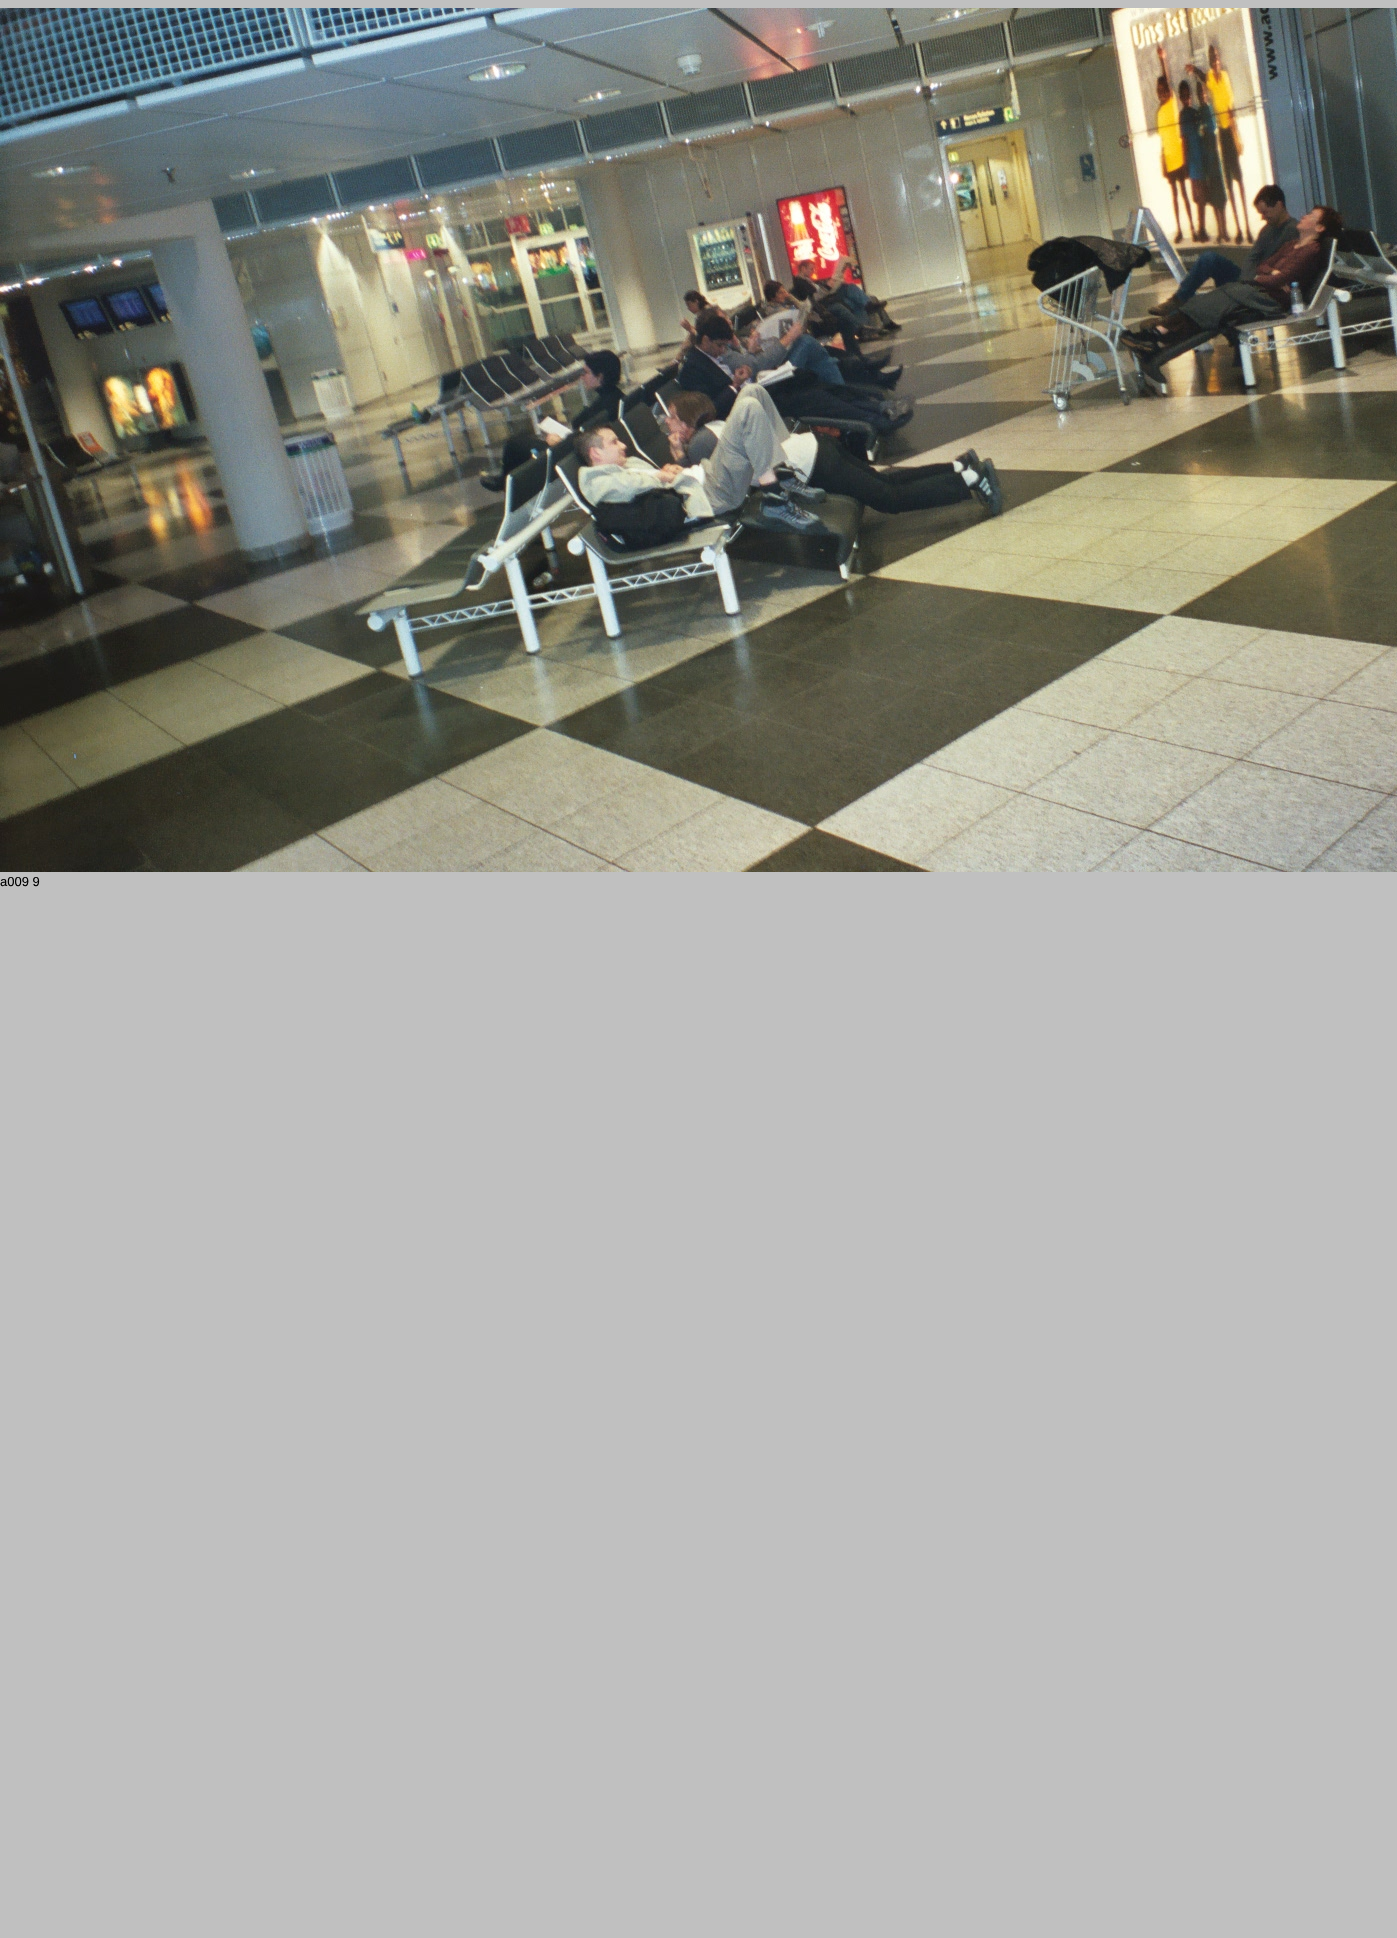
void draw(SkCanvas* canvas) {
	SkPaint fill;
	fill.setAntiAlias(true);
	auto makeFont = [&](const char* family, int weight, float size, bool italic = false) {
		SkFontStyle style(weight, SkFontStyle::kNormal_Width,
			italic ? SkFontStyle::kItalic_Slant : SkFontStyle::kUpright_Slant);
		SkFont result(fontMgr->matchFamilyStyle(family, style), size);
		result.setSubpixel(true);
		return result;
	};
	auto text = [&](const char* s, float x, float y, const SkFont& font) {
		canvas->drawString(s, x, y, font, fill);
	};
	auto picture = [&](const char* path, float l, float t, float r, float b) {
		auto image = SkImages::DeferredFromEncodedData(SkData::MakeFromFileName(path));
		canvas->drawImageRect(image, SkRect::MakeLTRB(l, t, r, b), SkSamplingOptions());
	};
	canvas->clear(0xFFC0C0C0);
	picture("image0.png", 0, 8, 1397, 872);
	auto font1 = makeFont("Liberation Sans", 400, 13);
	fill.setColor(0xFF000000);
	text("a009 9", 0, 886, font1);
}
